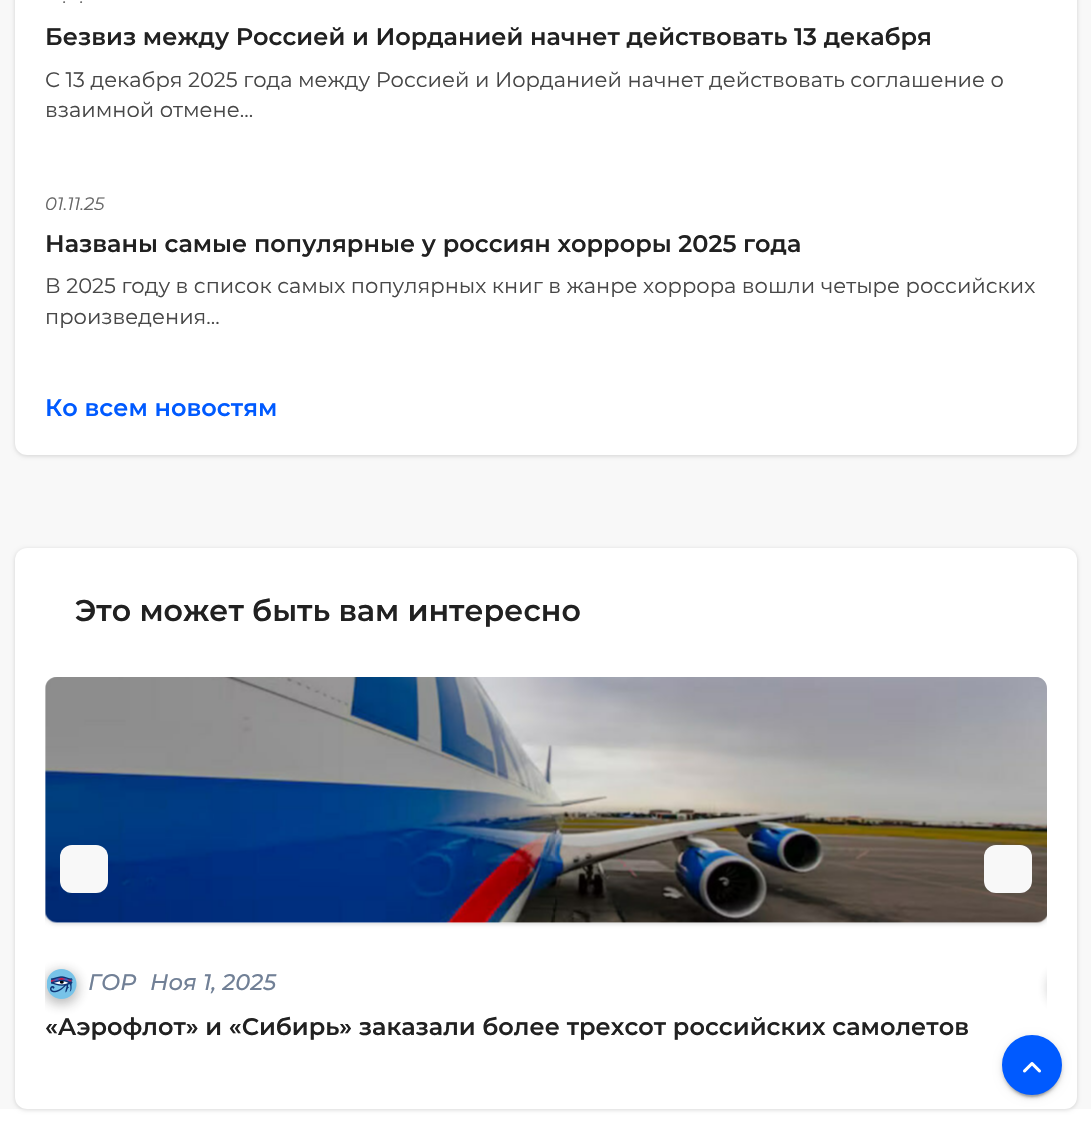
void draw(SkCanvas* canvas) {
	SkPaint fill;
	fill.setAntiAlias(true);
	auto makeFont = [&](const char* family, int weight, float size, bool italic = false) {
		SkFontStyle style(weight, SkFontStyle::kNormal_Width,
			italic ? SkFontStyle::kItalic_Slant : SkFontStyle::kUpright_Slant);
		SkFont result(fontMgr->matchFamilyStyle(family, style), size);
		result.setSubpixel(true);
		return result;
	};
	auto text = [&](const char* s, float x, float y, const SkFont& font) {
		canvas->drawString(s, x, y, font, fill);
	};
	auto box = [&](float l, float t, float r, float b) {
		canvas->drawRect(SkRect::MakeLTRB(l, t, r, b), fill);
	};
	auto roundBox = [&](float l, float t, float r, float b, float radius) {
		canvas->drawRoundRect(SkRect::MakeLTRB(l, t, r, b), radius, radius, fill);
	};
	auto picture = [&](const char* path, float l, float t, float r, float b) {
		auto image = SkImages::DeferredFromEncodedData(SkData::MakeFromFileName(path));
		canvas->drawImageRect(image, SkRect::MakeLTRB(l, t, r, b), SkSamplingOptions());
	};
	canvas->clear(0xFFF8F8F8);
	fill.setColor(0x26000000);
	fill.setMaskFilter(SkMaskFilter::MakeBlur(kNormal_SkBlurStyle, 2));
	canvas->drawRoundRect(SkRect::MakeLTRB(15, -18, 1077, 456), 12, 12, fill);
	fill.setMaskFilter(nullptr);
	fill.setColor(0xFFFFFFFF);
	roundBox(15, -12, 1077, 455, 12);
	box(0, 1109, 1091, 1125);
	fill.setColor(0x26000000);
	fill.setMaskFilter(SkMaskFilter::MakeBlur(kNormal_SkBlurStyle, 2));
	canvas->drawRoundRect(SkRect::MakeLTRB(15, 549, 1077, 1110), 12, 12, fill);
	fill.setMaskFilter(nullptr);
	fill.setColor(0xFFFFFFFF);
	roundBox(15, 548, 1077, 1109, 12);
	canvas->save();
	canvas->clipPath(SkPathBuilder().moveTo(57, 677).lineTo(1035, 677).cubicTo(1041.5f, 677, 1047, 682.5f, 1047, 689).lineTo(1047, 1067).cubicTo(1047, 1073.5f, 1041.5f, 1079, 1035, 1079).lineTo(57, 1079).cubicTo(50.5f, 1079, 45, 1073.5f, 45, 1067).lineTo(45, 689).cubicTo(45, 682.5f, 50.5f, 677, 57, 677).close().detach(), true);
	fill.setColor(0x26000000);
	fill.setMaskFilter(SkMaskFilter::MakeBlur(kNormal_SkBlurStyle, 2));
	canvas->drawRoundRect(SkRect::MakeLTRB(45, 678, 1049, 924), 12, 12, fill);
	fill.setMaskFilter(nullptr);
	fill.setMaskFilter(SkMaskFilter::MakeBlur(kNormal_SkBlurStyle, 2));
	canvas->drawRoundRect(SkRect::MakeLTRB(-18, 678, 45, 924), 12, 12, fill);
	fill.setMaskFilter(nullptr);
	canvas->restore();
	canvas->save();
	canvas->clipPath(SkPathBuilder().moveTo(57, 677).lineTo(1035, 677).cubicTo(1041.5f, 677, 1047, 682.5f, 1047, 689).lineTo(1047, 1067).cubicTo(1047, 1073.5f, 1041.5f, 1079, 1035, 1079).lineTo(57, 1079).cubicTo(50.5f, 1079, 45, 1073.5f, 45, 1067).lineTo(45, 689).cubicTo(45, 682.5f, 50.5f, 677, 57, 677).close().detach(), true);
	fill.setColor(0xFFFFFFFF);
	roundBox(45, 677, 1049, 923, 12);
	canvas->restore();
	picture("image0.png", 45, 677, 1047, 923);
	fill.setColor(0xFFF8F8F8);
	roundBox(60, 845, 108, 893, 12);
	roundBox(984, 845, 1032, 893, 12);
	canvas->save();
	canvas->clipPath(SkPathBuilder().moveTo(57, 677).lineTo(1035, 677).cubicTo(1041.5f, 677, 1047, 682.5f, 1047, 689).lineTo(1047, 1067).cubicTo(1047, 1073.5f, 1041.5f, 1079, 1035, 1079).lineTo(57, 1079).cubicTo(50.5f, 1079, 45, 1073.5f, 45, 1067).lineTo(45, 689).cubicTo(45, 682.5f, 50.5f, 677, 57, 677).close().detach(), true);
	fill.setColor(0x4D212121);
	fill.setMaskFilter(SkMaskFilter::MakeBlur(kNormal_SkBlurStyle, 6));
	canvas->drawRoundRect(SkRect::MakeLTRB(45, 971, 78, 1004), 14, 14, fill);
	fill.setMaskFilter(nullptr);
	canvas->restore();
	picture("image1.png", 47, 969, 77, 999);
	canvas->save();
	canvas->clipPath(SkPathBuilder().moveTo(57, 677).lineTo(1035, 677).cubicTo(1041.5f, 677, 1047, 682.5f, 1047, 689).lineTo(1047, 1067).cubicTo(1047, 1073.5f, 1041.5f, 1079, 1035, 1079).lineTo(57, 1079).cubicTo(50.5f, 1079, 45, 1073.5f, 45, 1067).lineTo(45, 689).cubicTo(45, 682.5f, 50.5f, 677, 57, 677).close().detach(), true);
	fill.setMaskFilter(SkMaskFilter::MakeBlur(kNormal_SkBlurStyle, 6));
	canvas->drawRoundRect(SkRect::MakeLTRB(1049, 971, 1082, 1004), 14, 14, fill);
	fill.setMaskFilter(nullptr);
	canvas->restore();
	fill.setColor(0x1F000000);
	fill.setMaskFilter(SkMaskFilter::MakeBlur(kNormal_SkBlurStyle, 4));
	canvas->drawRoundRect(SkRect::MakeLTRB(1002, 1037, 1062, 1097), 30, 30, fill);
	fill.setMaskFilter(nullptr);
	fill.setColor(0x33000000);
	fill.setMaskFilter(SkMaskFilter::MakeBlur(kNormal_SkBlurStyle, 1));
	canvas->drawRoundRect(SkRect::MakeLTRB(1005, 1043, 1059, 1097), 27, 27, fill);
	fill.setMaskFilter(nullptr);
	fill.setColor(0x24000000);
	fill.setMaskFilter(SkMaskFilter::MakeBlur(kNormal_SkBlurStyle, 1.5f));
	canvas->drawRoundRect(SkRect::MakeLTRB(1002, 1038, 1062, 1098), 30, 30, fill);
	fill.setMaskFilter(nullptr);
	fill.setColor(0xFF005AFF);
	canvas->drawCircle(1032, 1065, 28.5f, fill);
	fill.setStyle(SkPaint::kStroke_Style);
	fill.setStrokeWidth(3);
	canvas->drawCircle(1032, 1065, 28.5f, fill);
	picture("image2.png", 1023, 1062, 1041, 1073);
	auto font1 = makeFont("Montserrat", 400, 18, true);
	fill.setStyle(SkPaint::kFill_Style);
	fill.setColor(0xFF666666);
	text(".", 63, 3, font1);
	text(".", 80, 3, font1);
	auto font2 = makeFont("Montserrat", 600, 24);
	fill.setColor(0xFF212121);
	text("Безвиз между Россией и Иорданией начнет действовать 13 декабря", 45, 45, font2);
	auto font3 = makeFont("Montserrat", 400, 21);
	fill.setColor(0xFF474747);
	text("С 13 декабря 2025 года между Россией и Иорданией начнет действовать соглашение о", 45, 87, font3);
	text("взаимной отмене...", 45, 117, font3);
	fill.setColor(0xFF666666);
	text("01.11.25", 45, 210, font1);
	fill.setColor(0xFF212121);
	text("Названы самые популярные у россиян хорроры 2025 года", 45, 252, font2);
	fill.setColor(0xFF474747);
	text("В 2025 году в список самых популярных книг в жанре хоррора вошли четыре российских", 45, 293, font3);
	text("произведения...", 45, 324, font3);
	fill.setColor(0xFF005AFF);
	text("Ко всем новостям", 45, 416, font2);
	auto font4 = makeFont("Montserrat", 600, 30);
	fill.setColor(0xFF212121);
	text("Это может быть вам интересно", 75, 621, font4);
	auto font5 = makeFont("Montserrat", 500, 22.5f, true);
	fill.setColor(0xFF718096);
	text("ГОР", 88, 990, font5);
	text("Ноя 1, 2025", 150, 990, font5);
	fill.setColor(0xFF212121);
	text("«Аэрофлот» и «Сибирь» заказали более трехсот российских самолетов", 45, 1035, font2);
}
